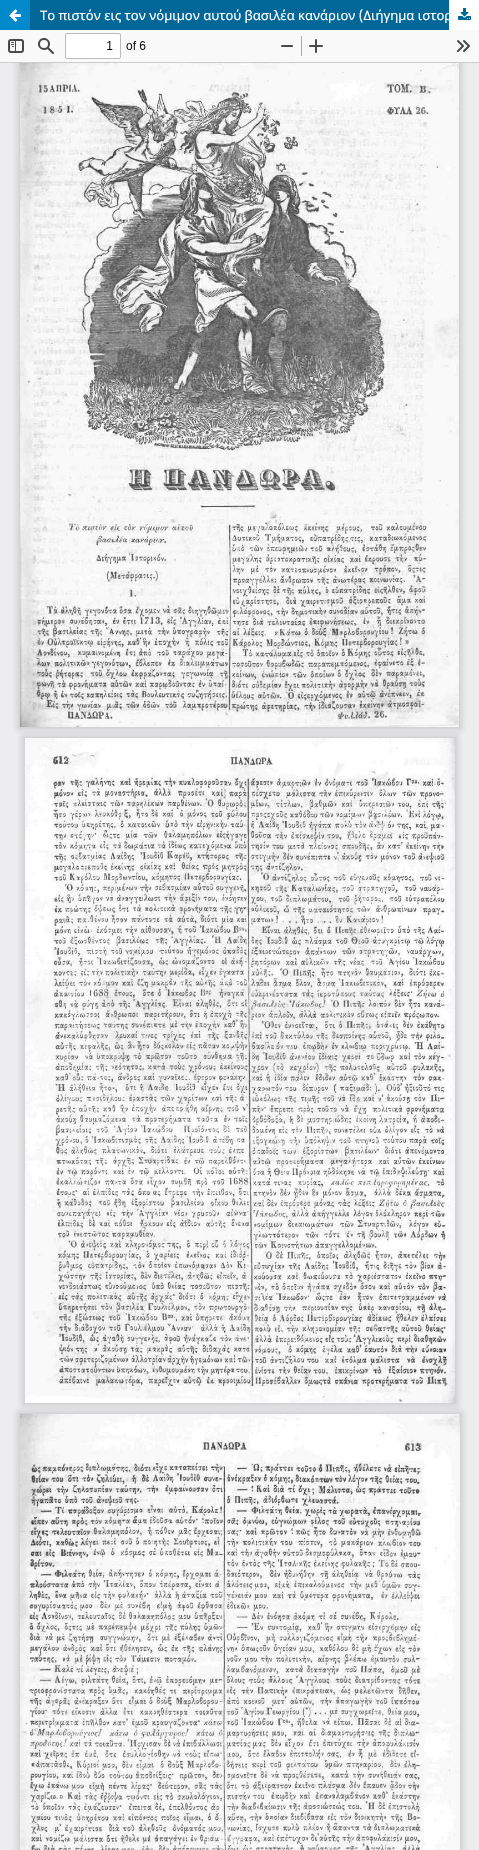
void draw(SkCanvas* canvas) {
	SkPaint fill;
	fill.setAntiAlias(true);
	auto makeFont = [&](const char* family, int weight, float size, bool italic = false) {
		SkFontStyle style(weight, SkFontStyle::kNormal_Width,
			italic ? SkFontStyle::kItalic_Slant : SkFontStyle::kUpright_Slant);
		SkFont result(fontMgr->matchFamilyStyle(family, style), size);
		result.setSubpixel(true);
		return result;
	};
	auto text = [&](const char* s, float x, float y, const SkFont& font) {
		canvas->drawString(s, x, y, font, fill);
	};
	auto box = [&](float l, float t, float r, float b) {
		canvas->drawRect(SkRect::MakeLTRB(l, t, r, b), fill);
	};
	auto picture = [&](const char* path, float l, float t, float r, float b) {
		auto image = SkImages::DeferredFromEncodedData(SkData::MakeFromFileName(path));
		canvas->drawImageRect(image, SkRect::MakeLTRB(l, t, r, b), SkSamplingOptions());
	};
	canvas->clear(0xFFFFFFFF);
	fill.setColor(0xFF006798);
	box(30, 0, 449, 30);
	fill.setColor(0xFF008ACB);
	box(0, 0, 30, 30);
	picture("image0.png", 9, 9, 21, 22);
	picture("image1.png", 458, 8, 471, 20);
	picture("image2.png", 0, 30, 479, 1850);
	auto font1 = makeFont("Noto Sans", 400, 13);
	fill.setColor(0xFFFFFFFF);
	text("Το πιστόν εις τον νόμιμον αυτού βασιλέα κανάριον (Διήγημα ιστορ", 40, 20, font1);
}
